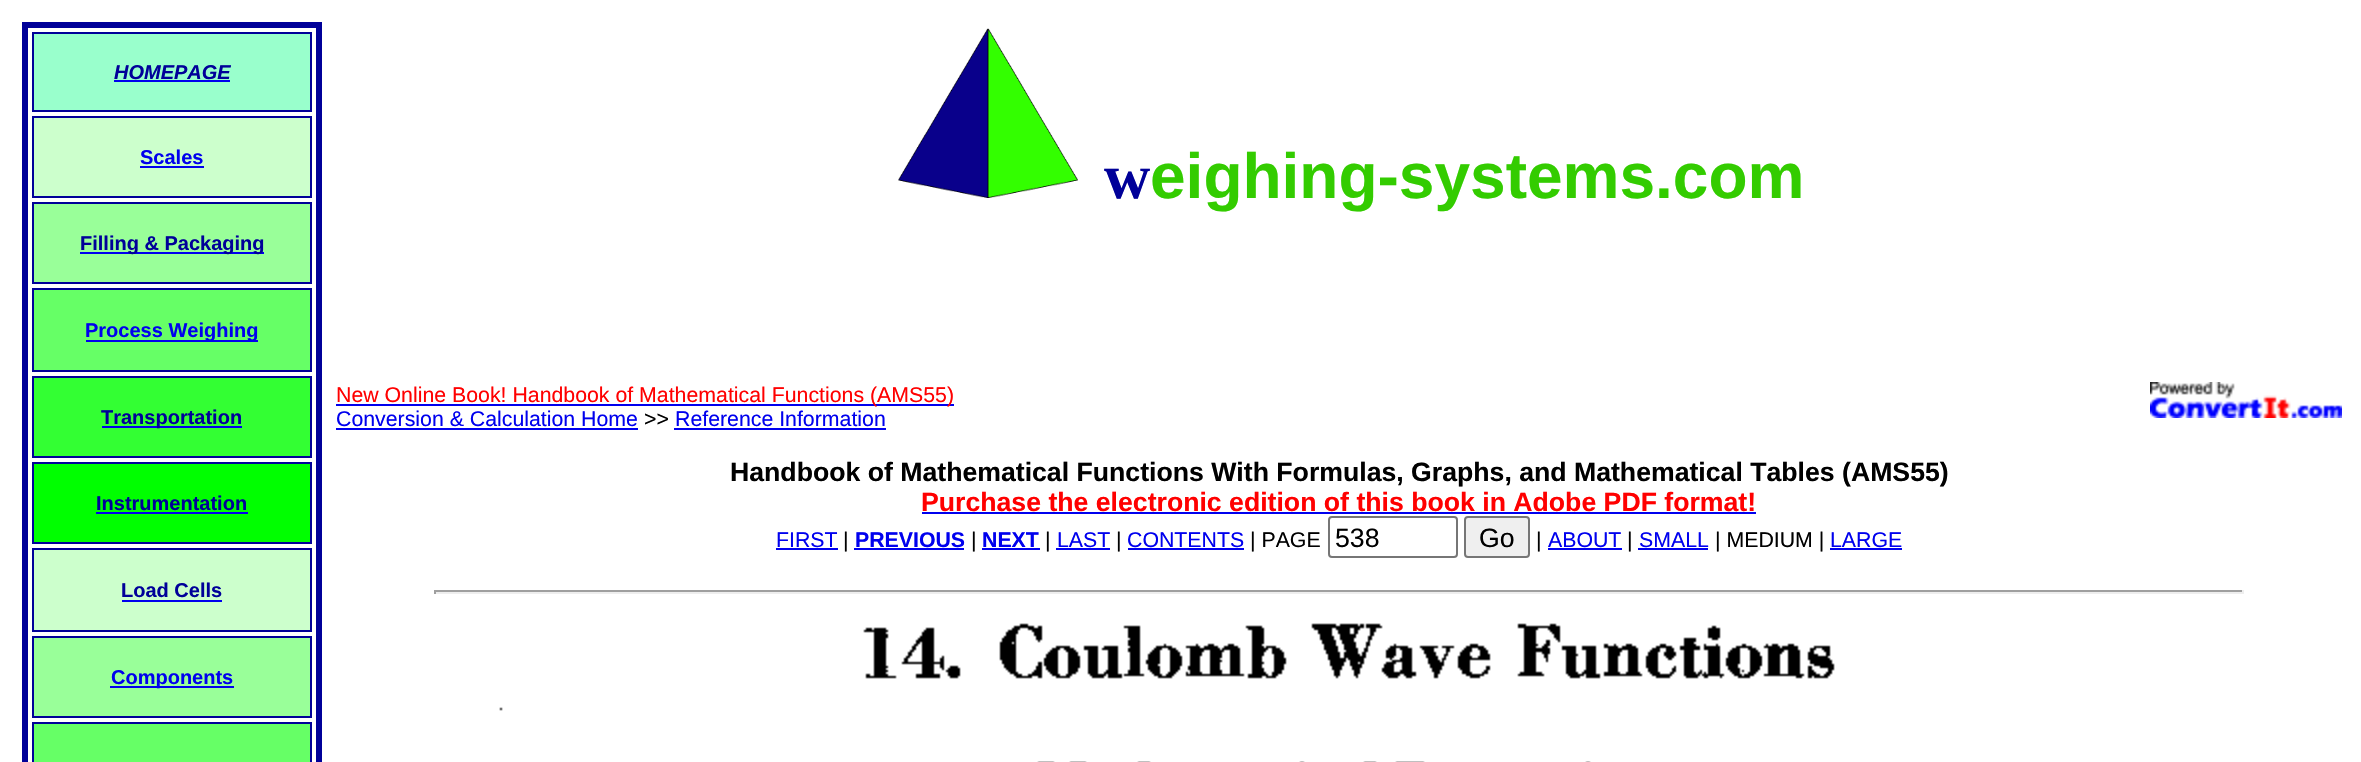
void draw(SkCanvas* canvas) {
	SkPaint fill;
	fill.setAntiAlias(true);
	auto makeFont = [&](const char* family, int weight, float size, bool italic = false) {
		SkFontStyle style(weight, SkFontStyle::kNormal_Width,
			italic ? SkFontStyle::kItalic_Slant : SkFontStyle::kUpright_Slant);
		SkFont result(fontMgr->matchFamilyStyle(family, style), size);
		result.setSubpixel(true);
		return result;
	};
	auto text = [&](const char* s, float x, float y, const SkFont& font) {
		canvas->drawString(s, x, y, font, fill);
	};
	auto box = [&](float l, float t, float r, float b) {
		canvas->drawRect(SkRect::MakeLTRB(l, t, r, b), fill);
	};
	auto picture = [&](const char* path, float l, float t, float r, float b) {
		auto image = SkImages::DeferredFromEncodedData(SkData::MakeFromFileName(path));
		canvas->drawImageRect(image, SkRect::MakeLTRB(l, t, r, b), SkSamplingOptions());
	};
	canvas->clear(0xFFFFFFFF);
	fill.setStyle(SkPaint::kStroke_Style);
	fill.setStrokeWidth(6);
	fill.setColor(0xFF000099);
	canvas->drawRect(SkRect::MakeLTRB(25, 25, 319, 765), fill);
	fill.setStyle(SkPaint::kFill_Style);
	fill.setColor(0xFF99FFCC);
	canvas->drawRect(SkRect::MakeLTRB(33, 33, 311, 111), fill);
	fill.setStyle(SkPaint::kStroke_Style);
	fill.setStrokeWidth(2);
	fill.setColor(0xFF000099);
	canvas->drawRect(SkRect::MakeLTRB(33, 33, 311, 111), fill);
	fill.setStyle(SkPaint::kFill_Style);
	fill.setColor(0xFF0000EE);
	box(114, 80, 230, 82);
	fill.setColor(0xFFCCFFCC);
	canvas->drawRect(SkRect::MakeLTRB(33, 117, 311, 197), fill);
	fill.setStyle(SkPaint::kStroke_Style);
	fill.setColor(0xFF000099);
	canvas->drawRect(SkRect::MakeLTRB(33, 117, 311, 197), fill);
	fill.setStyle(SkPaint::kFill_Style);
	fill.setColor(0xFF0000EE);
	box(140, 166, 204, 168);
	fill.setColor(0xFF99FF99);
	canvas->drawRect(SkRect::MakeLTRB(33, 203, 311, 283), fill);
	fill.setStyle(SkPaint::kStroke_Style);
	fill.setColor(0xFF000099);
	canvas->drawRect(SkRect::MakeLTRB(33, 203, 311, 283), fill);
	fill.setStyle(SkPaint::kFill_Style);
	fill.setColor(0xFF0000EE);
	box(80, 252, 264, 254);
	fill.setColor(0xFF66FF66);
	canvas->drawRect(SkRect::MakeLTRB(33, 289, 311, 371), fill);
	fill.setStyle(SkPaint::kStroke_Style);
	fill.setColor(0xFF000099);
	canvas->drawRect(SkRect::MakeLTRB(33, 289, 311, 371), fill);
	fill.setStyle(SkPaint::kFill_Style);
	fill.setColor(0xFF0000EE);
	box(86, 340, 258, 342);
	fill.setColor(0xFF33FF33);
	canvas->drawRect(SkRect::MakeLTRB(33, 377, 311, 457), fill);
	fill.setStyle(SkPaint::kStroke_Style);
	fill.setColor(0xFF000099);
	canvas->drawRect(SkRect::MakeLTRB(33, 377, 311, 457), fill);
	fill.setStyle(SkPaint::kFill_Style);
	fill.setColor(0xFF0000EE);
	box(102, 426, 242, 428);
	fill.setColor(0xFF00FF00);
	canvas->drawRect(SkRect::MakeLTRB(33, 463, 311, 543), fill);
	fill.setStyle(SkPaint::kStroke_Style);
	fill.setColor(0xFF000099);
	canvas->drawRect(SkRect::MakeLTRB(33, 463, 311, 543), fill);
	fill.setStyle(SkPaint::kFill_Style);
	fill.setColor(0xFF0000EE);
	box(96, 512, 248, 514);
	fill.setColor(0xFFCCFFCC);
	canvas->drawRect(SkRect::MakeLTRB(33, 549, 311, 631), fill);
	fill.setStyle(SkPaint::kStroke_Style);
	fill.setColor(0xFF000099);
	canvas->drawRect(SkRect::MakeLTRB(33, 549, 311, 631), fill);
	fill.setStyle(SkPaint::kFill_Style);
	fill.setColor(0xFF0000EE);
	box(122, 600, 222, 602);
	fill.setColor(0xFF99FF99);
	canvas->drawRect(SkRect::MakeLTRB(33, 637, 311, 717), fill);
	fill.setStyle(SkPaint::kStroke_Style);
	fill.setColor(0xFF000099);
	canvas->drawRect(SkRect::MakeLTRB(33, 637, 311, 717), fill);
	fill.setStyle(SkPaint::kFill_Style);
	fill.setColor(0xFF0000EE);
	box(110, 686, 234, 688);
	fill.setColor(0xFF66FF66);
	canvas->drawRect(SkRect::MakeLTRB(33, 723, 311, 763), fill);
	fill.setStyle(SkPaint::kStroke_Style);
	fill.setColor(0xFF000099);
	canvas->drawRect(SkRect::MakeLTRB(33, 723, 311, 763), fill);
	picture("image0.png", 898, 28, 1078, 198);
	fill.setStyle(SkPaint::kFill_Style);
	fill.setColor(0xFF0000EE);
	box(336, 404, 954, 406);
	picture("image1.png", 2150, 382, 2342, 418);
	box(336, 428, 638, 430);
	box(674, 428, 886, 430);
	box(922, 512, 1756, 514);
	box(776, 548, 838, 550);
	box(854, 548, 964, 550);
	box(982, 548, 1040, 550);
	box(1056, 548, 1110, 550);
	box(1128, 548, 1244, 550);
	fill.setStyle(SkPaint::kStroke_Style);
	fill.setColor(0xFF767676);
	canvas->drawRoundRect(SkRect::MakeLTRB(1329, 517, 1457, 557), 3, 3, fill);
	fill.setStyle(SkPaint::kFill_Style);
	fill.setColor(0xFFEFEFEF);
	canvas->drawRoundRect(SkRect::MakeLTRB(1465, 517, 1529, 557), 3, 3, fill);
	fill.setStyle(SkPaint::kStroke_Style);
	fill.setColor(0xFF767676);
	canvas->drawRoundRect(SkRect::MakeLTRB(1465, 517, 1529, 557), 3, 3, fill);
	fill.setStyle(SkPaint::kFill_Style);
	fill.setColor(0xFF0000EE);
	box(1548, 548, 1622, 550);
	box(1638, 548, 1708, 550);
	box(1830, 548, 1902, 550);
	fill.setColor(0xFF9F9F9F);
	box(434, 590, 2244, 592);
	fill.setColor(0xFFEEEEEE);
	box(2242, 590, 2244, 594);
	box(434, 592, 2244, 594);
	fill.setColor(0xFF9F9F9F);
	box(434, 590, 436, 594);
	picture("image2.png", 499, 623, 1835, 762);
	auto font1 = makeFont("Liberation Sans", 700, 20, true);
	fill.setColor(0xFF000099);
	text("HOMEPAGE", 114, 79, font1);
	auto font2 = makeFont("Liberation Sans", 700, 20);
	fill.setColor(0xFF0000EE);
	text("Scales", 140, 164, font2);
	fill.setColor(0xFF000099);
	text("Filling & Packaging", 80, 250, font2);
	fill.setColor(0xFF0000EE);
	text("Process Weighing", 85, 337, font2);
	fill.setColor(0xFF000099);
	text("Transportation", 101, 424, font2);
	text("Instrumentation", 96, 510, font2);
	text("Load Cells", 121, 597, font2);
	fill.setColor(0xFF0000EE);
	text("Components", 111, 684, font2);
	auto font3 = makeFont("Liberation Serif", 700, 64);
	fill.setColor(0xFF000099);
	text("w", 1104, 198, font3);
	auto font4 = makeFont("Liberation Sans", 700, 64);
	fill.setColor(0xFF33CC00);
	text("eighing-systems.com", 1150, 198, font4);
	auto font5 = makeFont("Liberation Sans", 400, 21.3f);
	fill.setColor(0xFFFF0000);
	text("New Online Book! Handbook of Mathematical Functions (AMS55)", 336, 402, font5);
	fill.setColor(0xFF0000EE);
	text("Conversion & Calculation Home", 336, 426, font5);
	fill.setColor(0xFF000000);
	text(">>", 644, 426, font5);
	fill.setColor(0xFF0000EE);
	text("Reference Information", 675, 426, font5);
	auto font6 = makeFont("Liberation Sans", 700, 26.65f);
	fill.setColor(0xFF000000);
	text("Handbook of Mathematical Functions With Formulas, Graphs, and Mathematical Tables (AMS55)", 730, 481, font6);
	fill.setColor(0xFFFF0000);
	text("Purchase the electronic edition of this book in Adobe PDF format!", 921, 511, font6);
	fill.setColor(0xFF0000EE);
	text("FIRST", 776, 547, font5);
	fill.setColor(0xFF000000);
	text("|", 843, 547, font5);
	auto font7 = makeFont("Liberation Sans", 700, 21.3f);
	fill.setColor(0xFF0000EE);
	text("PREVIOUS", 855, 547, font7);
	fill.setColor(0xFF000000);
	text("|", 971, 547, font5);
	fill.setColor(0xFF0000EE);
	text("NEXT", 982, 547, font7);
	fill.setColor(0xFF000000);
	text("|", 1045, 547, font5);
	fill.setColor(0xFF0000EE);
	text("LAST", 1057, 547, font5);
	fill.setColor(0xFF000000);
	text("|", 1116, 547, font5);
	fill.setColor(0xFF0000EE);
	text("CONTENTS", 1127, 547, font5);
	fill.setColor(0xFF000000);
	text("| PAGE", 1250, 547, font5);
	auto font8 = makeFont("Liberation Sans", 400, 26.65f);
	text("538", 1335, 547, font8);
	text("Go", 1479, 547, font8);
	text("|", 1536, 547, font5);
	fill.setColor(0xFF0000EE);
	text("ABOUT", 1548, 547, font5);
	fill.setColor(0xFF000000);
	text("|", 1627, 547, font5);
	fill.setColor(0xFF0000EE);
	text("SMALL", 1639, 547, font5);
	fill.setColor(0xFF000000);
	text("| MEDIUM |", 1715, 547, font5);
	fill.setColor(0xFF0000EE);
	text("LARGE", 1830, 547, font5);
}
